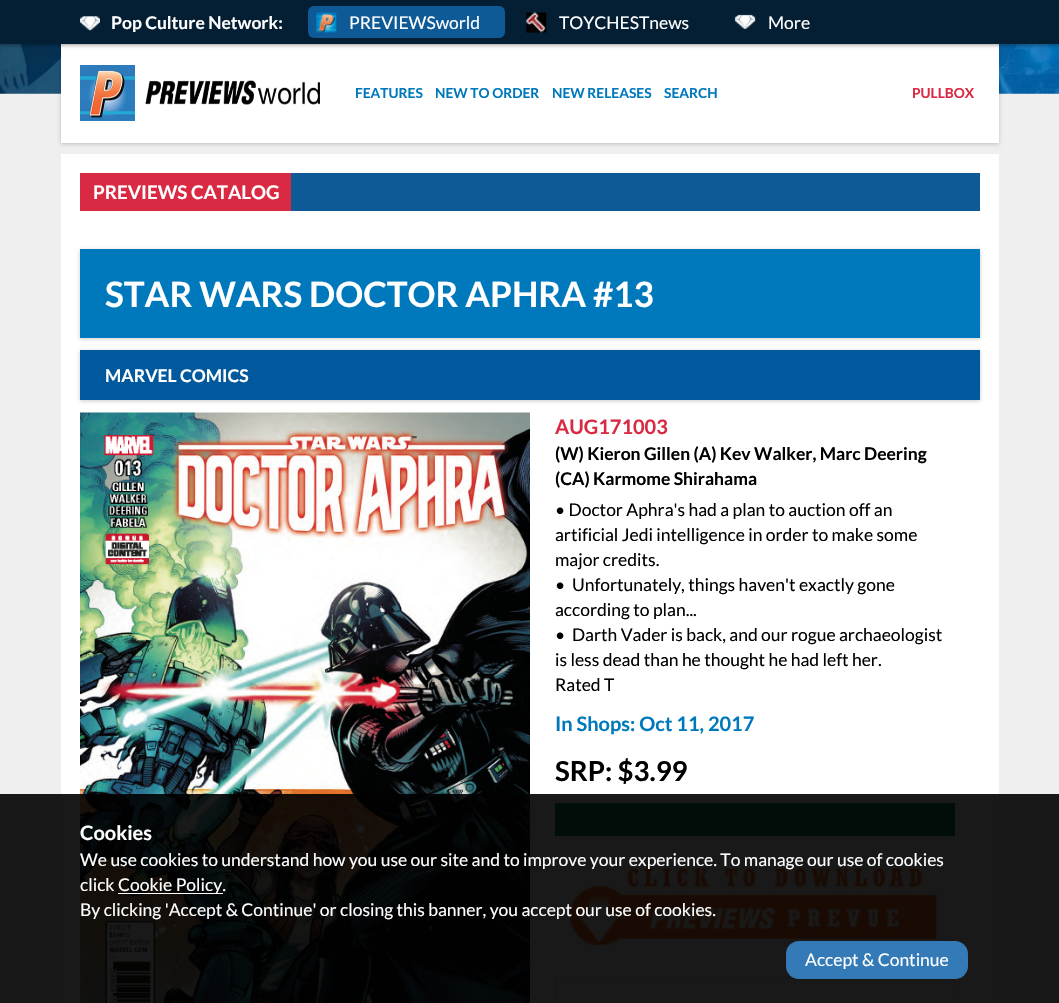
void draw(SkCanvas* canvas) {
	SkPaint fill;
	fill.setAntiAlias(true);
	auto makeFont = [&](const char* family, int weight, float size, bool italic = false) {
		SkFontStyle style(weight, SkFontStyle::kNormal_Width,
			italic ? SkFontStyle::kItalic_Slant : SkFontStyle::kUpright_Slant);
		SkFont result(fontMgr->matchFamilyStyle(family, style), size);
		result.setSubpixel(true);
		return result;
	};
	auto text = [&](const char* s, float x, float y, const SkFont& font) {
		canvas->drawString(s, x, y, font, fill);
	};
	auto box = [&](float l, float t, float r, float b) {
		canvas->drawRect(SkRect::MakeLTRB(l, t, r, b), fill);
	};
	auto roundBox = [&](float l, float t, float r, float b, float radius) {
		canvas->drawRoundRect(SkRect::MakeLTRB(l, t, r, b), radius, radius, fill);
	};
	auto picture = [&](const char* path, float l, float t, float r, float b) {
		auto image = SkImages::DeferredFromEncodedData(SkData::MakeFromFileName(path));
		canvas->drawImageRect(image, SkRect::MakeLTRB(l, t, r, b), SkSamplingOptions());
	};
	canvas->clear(0xFFEFEFEF);
	picture("image0.png", 0, 44, 1059, 94);
	fill.setColor(0x33000000);
	fill.setMaskFilter(SkMaskFilter::MakeBlur(kNormal_SkBlurStyle, 2));
	canvas->drawRect(SkRect::MakeLTRB(61, 45, 999, 144), fill);
	fill.setMaskFilter(nullptr);
	fill.setColor(0xFFFFFFFF);
	box(61, 44, 999, 143);
	fill.setColor(0x66000000);
	fill.setMaskFilter(SkMaskFilter::MakeBlur(kNormal_SkBlurStyle, 2));
	canvas->drawRect(SkRect::MakeLTRB(0, 1, 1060, 45), fill);
	fill.setMaskFilter(nullptr);
	fill.setColor(0xFF041F34);
	box(0, 0, 1059, 44);
	picture("image1.png", 80, 16, 100, 31);
	fill.setColor(0xFF0D5A97);
	roundBox(308, 6, 505, 38, 6);
	picture("image2.png", 316, 12, 337, 33);
	picture("image3.png", 526, 12, 547, 33);
	picture("image4.png", 734, 14, 756, 29);
	picture("image5.png", 80, 65, 320, 121);
	fill.setColor(0xFFFFFFFF);
	box(61, 154, 999, 1003);
	fill.setColor(0xFF0D5A97);
	box(291, 173, 980, 211);
	fill.setColor(0xFFD92943);
	box(80, 173, 291, 211);
	fill.setColor(0x33000000);
	fill.setMaskFilter(SkMaskFilter::MakeBlur(kNormal_SkBlurStyle, 2));
	canvas->drawRect(SkRect::MakeLTRB(80, 250, 980, 339), fill);
	fill.setMaskFilter(nullptr);
	fill.setColor(0xFF0079BC);
	box(80, 249, 980, 338);
	fill.setColor(0x33000000);
	fill.setMaskFilter(SkMaskFilter::MakeBlur(kNormal_SkBlurStyle, 2));
	canvas->drawRect(SkRect::MakeLTRB(80, 351, 980, 401), fill);
	fill.setMaskFilter(nullptr);
	fill.setColor(0xFF00599C);
	box(80, 350, 980, 400);
	picture("image6.png", 80, 412, 530, 1003);
	fill.setColor(0xFF008053);
	box(555, 803, 955, 836);
	picture("image7.png", 567, 861, 938, 952);
	fill.setColor(0xFFFAFAFA);
	canvas->drawRect(SkRect::MakeLTRB(555.5f, 978.5f, 954.5f, 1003.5f), fill);
	fill.setStyle(SkPaint::kStroke_Style);
	fill.setStrokeWidth(1);
	fill.setColor(0xFFDDDDDD);
	canvas->drawRect(SkRect::MakeLTRB(555.5f, 978.5f, 954.5f, 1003.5f), fill);
	fill.setStyle(SkPaint::kFill_Style);
	fill.setColor(0xE6000000);
	box(0, 794, 1059, 1003);
	fill.setColor(0xFFFFFFFF);
	box(118, 893, 223, 894);
	fill.setColor(0xFF337AB7);
	roundBox(786, 941, 968, 979, 13);
	auto font1 = makeFont("Lato", 700, 17.5f);
	fill.setColor(0xFFFFFFFF);
	text("Pop Culture Network:", 111, 29, font1);
	auto font2 = makeFont("Lato", 400, 17.5f);
	text("PREVIEWSworld", 349, 29, font2);
	text("TOYCHESTnews", 559, 29, font2);
	text("More", 768, 29, font2);
	auto font3 = makeFont("Lato", 700, 13.75f);
	fill.setColor(0xFF0079BC);
	text("FEATURES", 355, 98, font3);
	text("NEW TO ORDER", 435, 98, font3);
	text("NEW RELEASES", 552, 98, font3);
	text("SEARCH", 664, 98, font3);
	fill.setColor(0xFFD92943);
	text("PULLBOX", 912, 98, font3);
	auto font4 = makeFont("Lato", 700, 18.75f);
	fill.setColor(0xFFFFFFFF);
	text("PREVIEWS CATALOG", 93, 199, font4);
	auto font5 = makeFont("Lato", 700, 35);
	text("STAR WARS DOCTOR APHRA #13", 105, 307, font5);
	text("MARVEL COMICS", 105, 382, font1);
	auto font6 = makeFont("Lato", 700, 20);
	fill.setColor(0xFFD92943);
	text("AUG171003", 555, 434, font6);
	fill.setColor(0xFF000000);
	text("(W) Kieron Gillen (A) Kev Walker, Marc Deering", 555, 460, font1);
	text("(CA) Karmome Shirahama", 555, 485, font1);
	text("• Doctor Aphra's had a plan to auction off an", 555, 516, font2);
	text("artificial Jedi intelligence in order to make some", 555, 541, font2);
	text("major credits.", 555, 566, font2);
	text("•  Unfortunately, things haven't exactly gone", 555, 591, font2);
	text("according to plan...", 555, 616, font2);
	text("•  Darth Vader is back, and our rogue archaeologist", 555, 641, font2);
	text("is less dead than he thought he had left her.", 555, 666, font2);
	text("Rated T", 555, 691, font2);
	fill.setColor(0xFF0079BC);
	text("In Shops: Oct 11, 2017", 555, 731, font6);
	auto font7 = makeFont("Lato", 700, 27.5f);
	fill.setColor(0xFF000000);
	text("SRP: $3.99", 555, 781, font7);
	fill.setColor(0xFFFFFFFF);
	text("Cookies", 80, 840, font6);
	text("We use cookies to understand how you use our site and to improve your experience. To manage our use of cookies", 80, 866, font2);
	text("click", 80, 891, font2);
	text("Cookie Policy.", 118, 891, font2);
	text("By clicking 'Accept & Continue' or closing this banner, you accept our use of cookies.", 80, 916, font2);
	text("Accept & Continue", 805, 966, font2);
}
